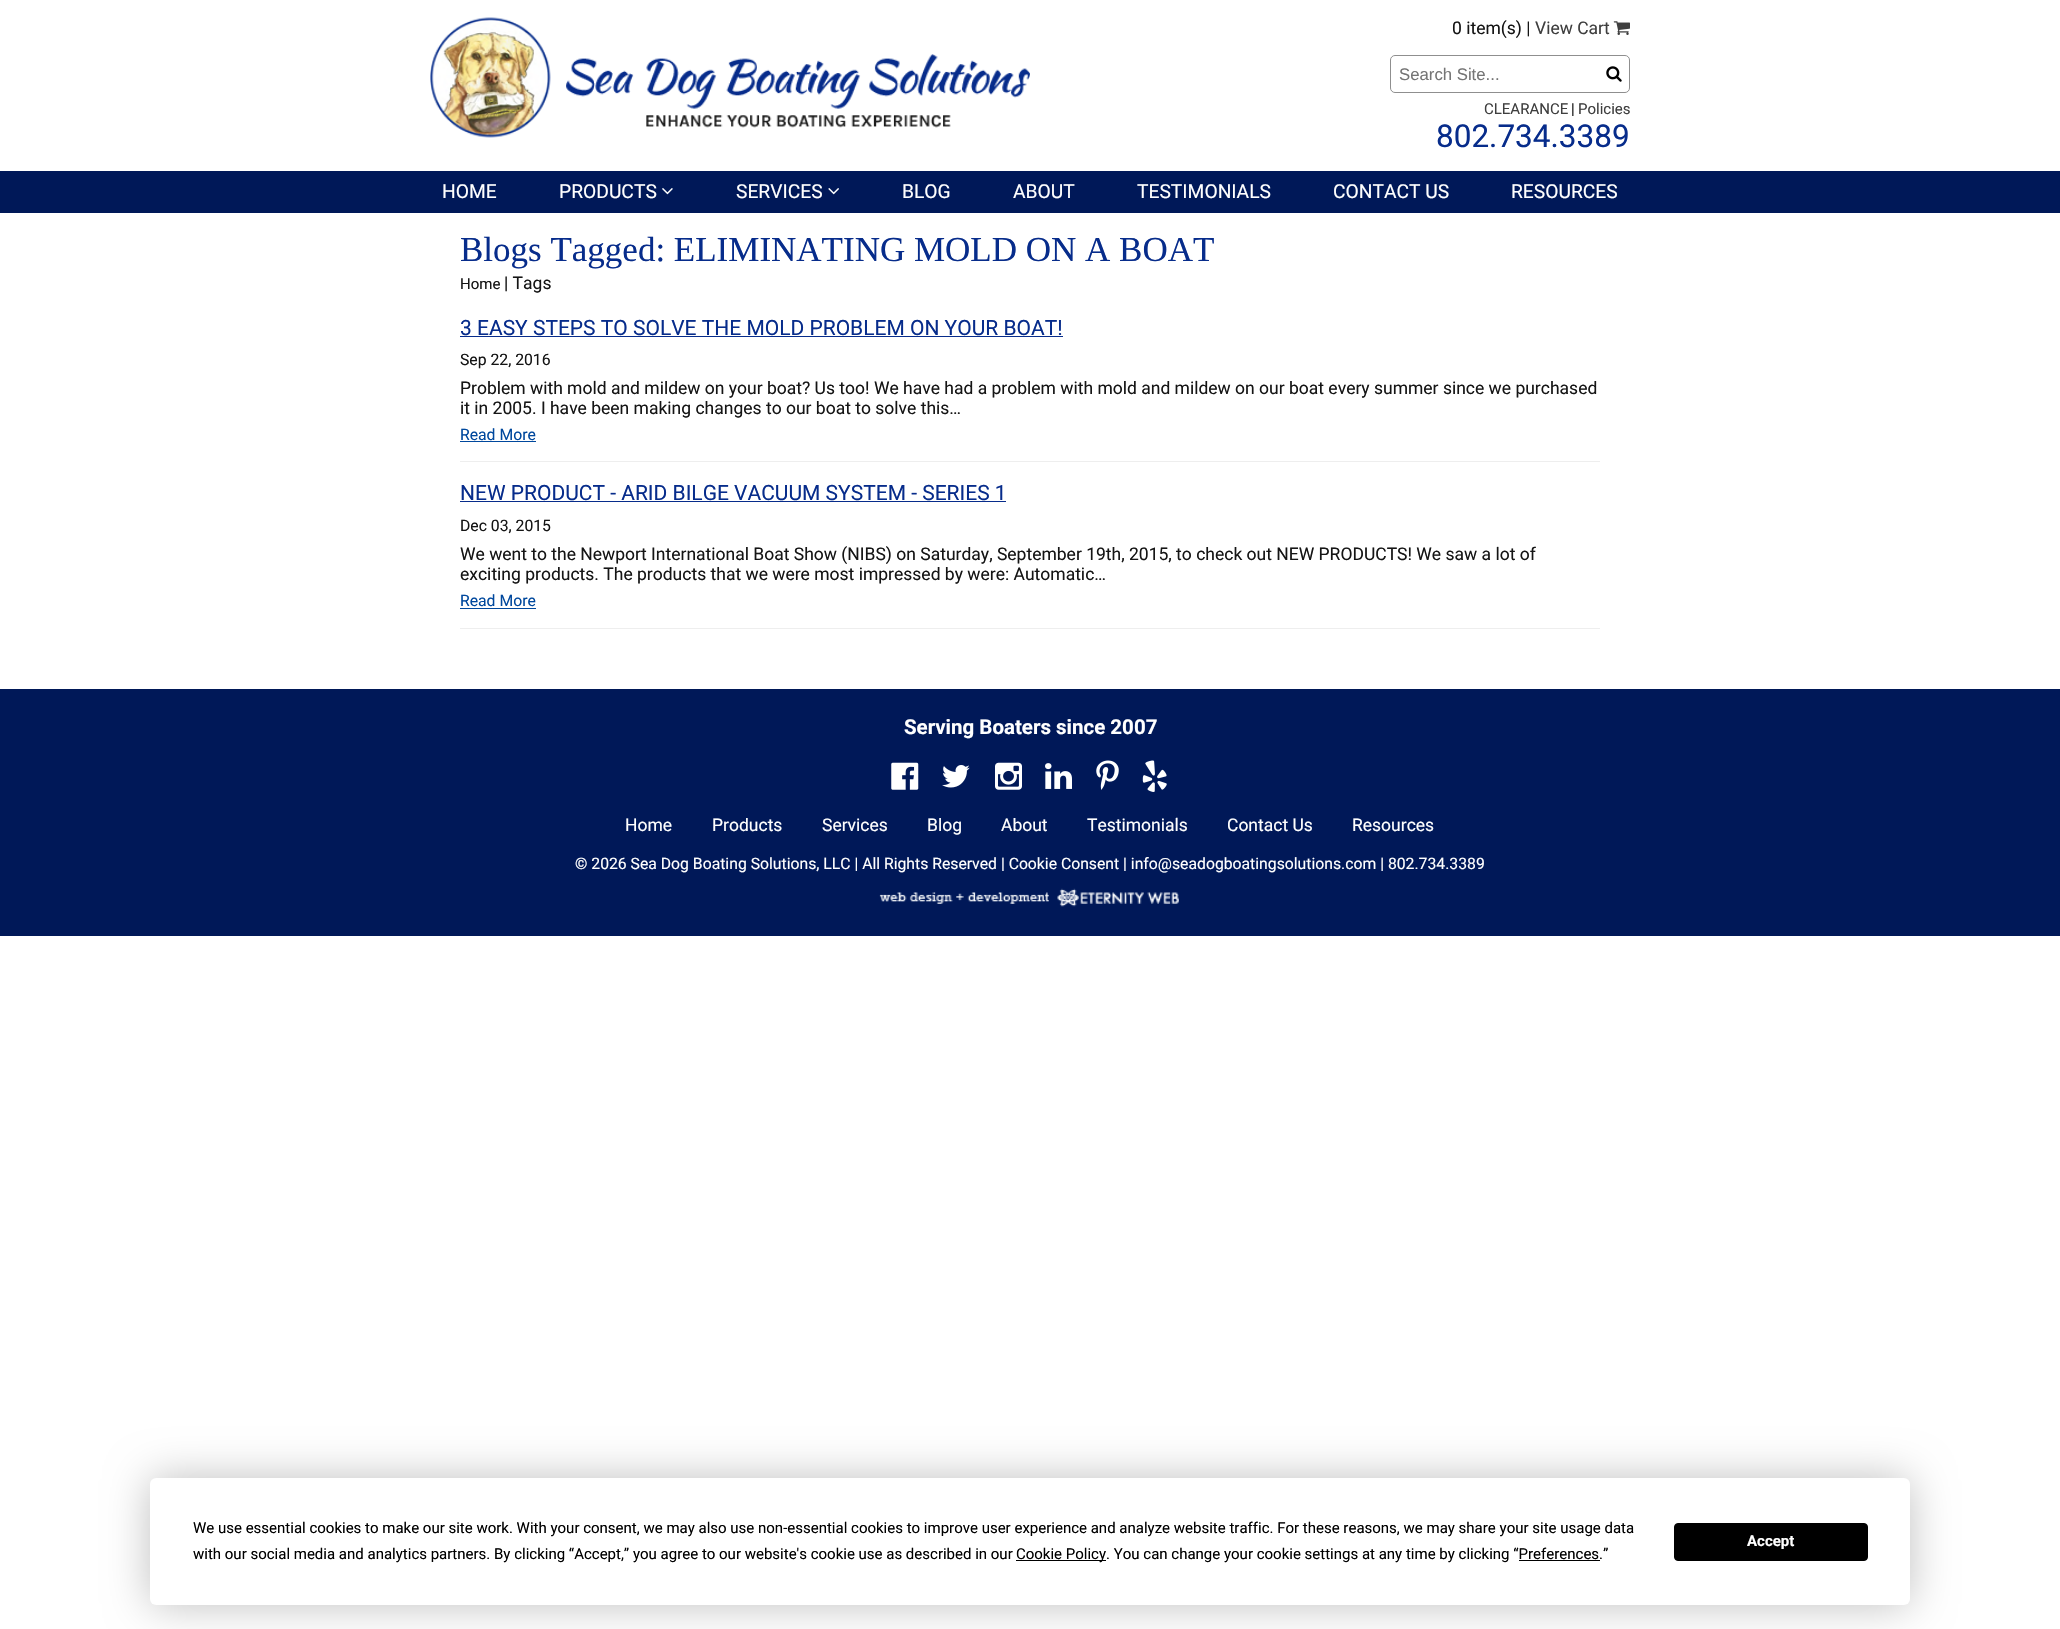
void draw(SkCanvas* canvas) {
	SkPaint fill;
	fill.setAntiAlias(true);
	auto makeFont = [&](const char* family, int weight, float size, bool italic = false) {
		SkFontStyle style(weight, SkFontStyle::kNormal_Width,
			italic ? SkFontStyle::kItalic_Slant : SkFontStyle::kUpright_Slant);
		SkFont result(fontMgr->matchFamilyStyle(family, style), size);
		result.setSubpixel(true);
		return result;
	};
	auto text = [&](const char* s, float x, float y, const SkFont& font) {
		canvas->drawString(s, x, y, font, fill);
	};
	auto box = [&](float l, float t, float r, float b) {
		canvas->drawRect(SkRect::MakeLTRB(l, t, r, b), fill);
	};
	auto roundBox = [&](float l, float t, float r, float b, float radius) {
		canvas->drawRoundRect(SkRect::MakeLTRB(l, t, r, b), radius, radius, fill);
	};
	auto picture = [&](const char* path, float l, float t, float r, float b) {
		auto image = SkImages::DeferredFromEncodedData(SkData::MakeFromFileName(path));
		canvas->drawImageRect(image, SkRect::MakeLTRB(l, t, r, b), SkSamplingOptions());
	};
	canvas->clear(0xFFFFFFFF);
	picture("image0.png", 430, 17, 1030, 138);
	picture("image1.png", 1613, 21, 1630, 35);
	fill.setStyle(SkPaint::kStroke_Style);
	fill.setStrokeWidth(1);
	fill.setColor(0xFF8F8F8F);
	canvas->drawRoundRect(SkRect::MakeLTRB(1390.5f, 55.5f, 1629.5f, 92.5f), 4.5f, 4.5f, fill);
	picture("image2.png", 1606, 66, 1622, 82);
	fill.setStyle(SkPaint::kFill_Style);
	fill.setColor(0xFF001858);
	box(0, 171, 2060, 213);
	picture("image3.png", 662, 188, 673, 195);
	picture("image4.png", 828, 188, 839, 195);
	fill.setColor(0xFFEEEEEE);
	box(460, 461, 1600, 462);
	fill.setColor(0xFF072C8B);
	box(460, 336, 1063, 337);
	fill.setColor(0xFF00489D);
	box(460, 441, 536, 442);
	fill.setColor(0xFFEEEEEE);
	box(460, 628, 1600, 629);
	fill.setColor(0xFF072C8B);
	box(460, 501, 1006, 502);
	fill.setColor(0xFF00489D);
	box(460, 608, 536, 609);
	fill.setColor(0xFF001858);
	box(0, 689, 2060, 936);
	picture("image5.png", 891, 762, 919, 790);
	picture("image6.png", 942, 765, 970, 788);
	picture("image7.png", 995, 762, 1022, 790);
	picture("image8.png", 1045, 763, 1072, 789);
	picture("image9.png", 1096, 760, 1119, 790);
	picture("image10.png", 1142, 760, 1167, 792);
	picture("image11.png", 879, 888, 1179, 907);
	fill.setColor(0x40000000);
	fill.setMaskFilter(SkMaskFilter::MakeBlur(kNormal_SkBlurStyle, 22));
	canvas->drawRoundRect(SkRect::MakeLTRB(150, 1478, 1910, 1605), 6, 6, fill);
	fill.setMaskFilter(nullptr);
	fill.setColor(0xFFFFFFFF);
	roundBox(150, 1478, 1910, 1605, 6);
	fill.setColor(0xFF000000);
	box(1016, 1560, 1106, 1561);
	box(1519, 1560, 1600, 1561);
	canvas->drawRoundRect(SkRect::MakeLTRB(1674.5f, 1523.5f, 1867.5f, 1560.5f), 3.5f, 3.5f, fill);
	fill.setStyle(SkPaint::kStroke_Style);
	canvas->drawRoundRect(SkRect::MakeLTRB(1674.5f, 1523.5f, 1867.5f, 1560.5f), 3.5f, 3.5f, fill);
	auto font1 = makeFont("Roboto", 400, 17.5f);
	fill.setStyle(SkPaint::kFill_Style);
	fill.setColor(0xFF151515);
	text("0 item(s) |", 1452, 34, font1);
	fill.setColor(0xFF3F3F3F);
	text("View Cart", 1535, 34, font1);
	auto font2 = makeFont("Liberation Sans", 400, 16.75f);
	fill.setColor(0xFF757575);
	text("Search Site...", 1399, 80, font2);
	auto font3 = makeFont("Roboto", 400, 15);
	fill.setColor(0xFF3F3F3F);
	text("CLEARANCE", 1484, 114, font3);
	fill.setColor(0xFF151515);
	text("|", 1571, 114, font3);
	fill.setColor(0xFF3F3F3F);
	text("Policies", 1578, 114, font3);
	auto font4 = makeFont("Roboto", 400, 31.5f);
	fill.setColor(0xFF072C8B);
	text("802.734.3389", 1436, 147, font4);
	auto font5 = makeFont("Roboto", 400, 19.25f);
	fill.setColor(0xFFFFFFFF);
	text("HOME", 442, 198, font5);
	text("PRODUCTS", 559, 198, font5);
	text("SERVICES", 736, 198, font5);
	text("BLOG", 902, 198, font5);
	text("ABOUT", 1013, 198, font5);
	text("TESTIMONIALS", 1137, 198, font5);
	text("CONTACT US", 1333, 198, font5);
	text("RESOURCES", 1511, 198, font5);
	auto font6 = makeFont("Liberation Serif", 400, 35);
	fill.setColor(0xFF072C8B);
	text("Blogs Tagged: ELIMINATING MOLD ON A BOAT", 460, 261, font6);
	fill.setColor(0xFF151515);
	text("Home", 460, 289, font3);
	text("| Tags", 504, 289, font1);
	auto font7 = makeFont("Roboto", 400, 21);
	fill.setColor(0xFF072C8B);
	text("3 EASY STEPS TO SOLVE THE MOLD PROBLEM ON YOUR BOAT!", 460, 335, font7);
	auto font8 = makeFont("Roboto", 400, 15.75f);
	fill.setColor(0xFF151515);
	text("Sep 22, 2016", 460, 365, font8);
	text("Problem with mold and mildew on your boat? Us too! We have had a problem with mold and mildew on our boat every summer since we purchased", 460, 394, font1);
	text("it in 2005. I have been making changes to our boat to solve this…", 460, 414, font1);
	fill.setColor(0xFF00489D);
	text("Read More", 460, 440, font8);
	fill.setColor(0xFF072C8B);
	text("NEW PRODUCT - ARID BILGE VACUUM SYSTEM - SERIES 1", 460, 500, font7);
	fill.setColor(0xFF151515);
	text("Dec 03, 2015", 460, 531, font8);
	text("We went to the Newport International Boat Show (NIBS) on Saturday, September 19th, 2015, to check out NEW PRODUCTS! We saw a lot of", 460, 560, font1);
	text("exciting products. The products that we were most impressed by were: Automatic…", 460, 580, font1);
	fill.setColor(0xFF00489D);
	text("Read More", 460, 606, font8);
	auto font9 = makeFont("Roboto", 700, 20.5f);
	fill.setColor(0xFFFFFFFF);
	text("Serving Boaters since 2007", 904, 734, font9);
	text("Home", 625, 831, font1);
	text("Products", 712, 831, font1);
	text("Services", 822, 831, font1);
	text("Blog", 927, 831, font1);
	text("About", 1001, 831, font1);
	text("Testimonials", 1087, 831, font1);
	text("Contact Us", 1227, 831, font1);
	text("Resources", 1352, 831, font1);
	text("© 2026 Sea Dog Boating Solutions, LLC | All Rights Reserved | Cookie Consent | info@seadogboatingsolutions.com | 802.734.3389", 575, 869, font8);
	fill.setColor(0xFF000000);
	text("We use essential cookies to make our site work. With your consent, we may also use non-essential cookies to improve user experience and analyze website traffic. For these reasons, we may share your site usage data", 193, 1533, font3);
	text("with our social media and analytics partners. By clicking “Accept,” you agree to our website's cookie use as described in our", 193, 1559, font3);
	text("Cookie Policy. You can change your cookie settings at any time by clicking “Preferences.”", 1016, 1559, font3);
	auto font10 = makeFont("Roboto", 700, 15);
	fill.setColor(0xFFFFFFFF);
	text("Accept", 1747, 1546, font10);
}
